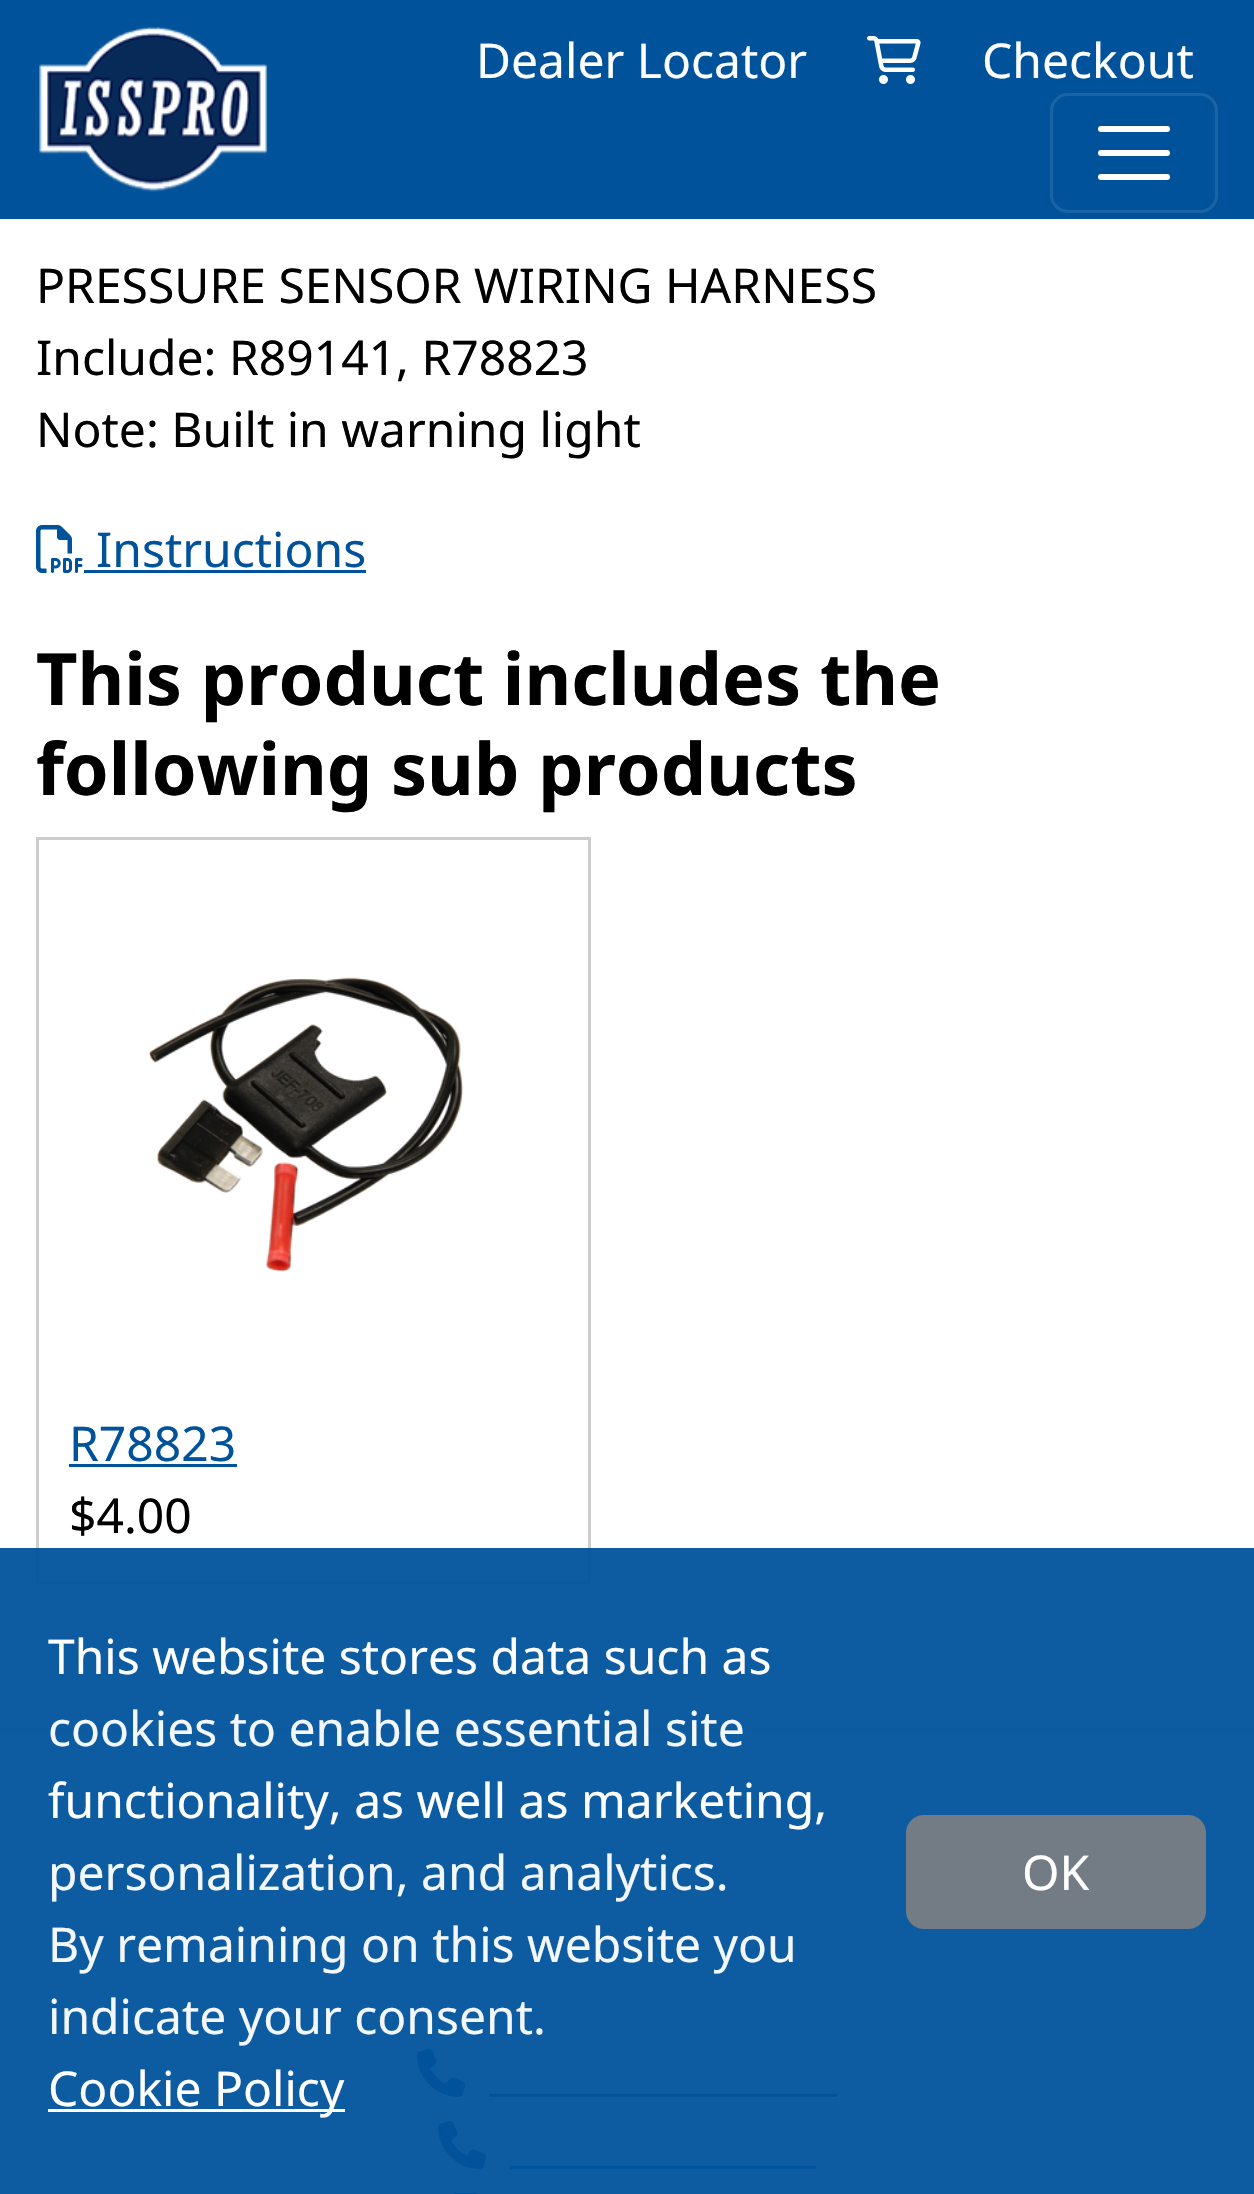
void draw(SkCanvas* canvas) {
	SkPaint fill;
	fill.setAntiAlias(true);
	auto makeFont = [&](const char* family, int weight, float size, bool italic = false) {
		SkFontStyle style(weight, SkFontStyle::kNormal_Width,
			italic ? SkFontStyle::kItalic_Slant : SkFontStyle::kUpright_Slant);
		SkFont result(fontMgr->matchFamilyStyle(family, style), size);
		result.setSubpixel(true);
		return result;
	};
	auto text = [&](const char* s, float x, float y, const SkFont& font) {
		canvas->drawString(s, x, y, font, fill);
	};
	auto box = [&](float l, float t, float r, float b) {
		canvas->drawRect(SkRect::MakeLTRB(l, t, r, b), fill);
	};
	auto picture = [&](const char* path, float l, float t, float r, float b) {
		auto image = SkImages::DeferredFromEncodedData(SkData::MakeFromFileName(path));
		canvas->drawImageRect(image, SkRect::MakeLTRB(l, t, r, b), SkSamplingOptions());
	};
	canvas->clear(0xFFFFFFFF);
	fill.setColor(0xFF00529B);
	box(0, 0, 1254, 219);
	picture("image0.png", 39, 27, 268, 192);
	picture("image1.png", 867, 36, 921, 84);
	fill.setStyle(SkPaint::kStroke_Style);
	fill.setStrokeWidth(3);
	fill.setColor(0xFF1A63A5);
	canvas->drawRoundRect(SkRect::MakeLTRB(1051.5f, 94.5f, 1216.5f, 211.5f), 16.5f, 16.5f, fill);
	fill.setStrokeWidth(6);
	fill.setStrokeCap(SkPaint::kRound_Cap);
	fill.setColor(0xFFFFFFFF);
	canvas->drawPath(SkPathBuilder().moveTo(1101, 129).lineTo(1167, 129).moveTo(1101, 153).lineTo(1167, 153).moveTo(1101, 177).lineTo(1167, 177).detach(), fill);
	picture("image2.png", 36, 525, 83, 573);
	fill.setStyle(SkPaint::kFill_Style);
	fill.setColor(0xFF00529B);
	box(84, 570, 366, 573);
	fill.setStyle(SkPaint::kStroke_Style);
	fill.setStrokeWidth(3);
	fill.setStrokeCap(SkPaint::kButt_Cap);
	fill.setColor(0xFFCCCCCC);
	canvas->drawRect(SkRect::MakeLTRB(37.5f, 838.5f, 589.5f, 1582.5f), fill);
	picture("image3.png", 148, 977, 464, 1272);
	fill.setStyle(SkPaint::kFill_Style);
	fill.setColor(0xFF00529B);
	box(69, 1464, 237, 1467);
	fill.setColor(0xFFDEE2E6);
	box(0, 1728, 1254, 1731);
	picture("image4.png", 417, 2049, 465, 2097);
	fill.setColor(0xFF00529B);
	box(489, 2094, 837, 2097);
	picture("image4.png", 438, 2121, 486, 2169);
	box(510, 2166, 816, 2169);
	picture("image5.png", 452, 2193, 478, 2194);
	fill.setColor(0xF200529B);
	box(0, 1548, 1254, 2194);
	fill.setColor(0xFFFFFFFF);
	box(48, 2109, 345, 2112);
	fill.setColor(0xFF737C84);
	canvas->drawRoundRect(SkRect::MakeLTRB(907.5f, 1816.5f, 1204.5f, 1927.5f), 16.5f, 16.5f, fill);
	fill.setStyle(SkPaint::kStroke_Style);
	canvas->drawRoundRect(SkRect::MakeLTRB(907.5f, 1816.5f, 1204.5f, 1927.5f), 16.5f, 16.5f, fill);
	auto font1 = makeFont("Noto Sans", 400, 48);
	fill.setStyle(SkPaint::kFill_Style);
	fill.setColor(0xFFFFFFFF);
	text("Dealer Locator", 476, 78, font1);
	text("Checkout", 982, 78, font1);
	fill.setColor(0xFF000000);
	text("PRESSURE SENSOR WIRING HARNESS", 36, 303, font1);
	text("Include: R89141, R78823", 36, 375, font1);
	text("Note: Built in warning light", 36, 447, font1);
	fill.setColor(0xFF00529B);
	text("Instructions", 96, 567, font1);
	auto font2 = makeFont("Noto Sans", 700, 72);
	fill.setColor(0xFF000000);
	text("This product includes the", 36, 705, font2);
	text("following sub products", 36, 795, font2);
	fill.setColor(0xFF00529B);
	text("R78823", 69, 1461, font1);
	fill.setColor(0xFF000000);
	text("$4.00", 69, 1533, font1);
	fill.setColor(0xFFFFFFFF);
	text("This website stores data such as", 48, 1674, font1);
	fill.setColor(0xFFF3F7FA);
	text("cookies to enable essential site", 48, 1746, font1);
	fill.setColor(0xFFFFFFFF);
	text("functionality, as well as marketing,", 48, 1818, font1);
	fill.setColor(0xFFF3F7FA);
	text("personalization, and analytics.", 48, 1890, font1);
	text("By remaining on this website you", 48, 1962, font1);
	text("indicate your consent.", 48, 2034, font1);
	fill.setColor(0xFFFFFFFF);
	text("Cookie Policy", 48, 2106, font1);
	text("OK", 1022, 1890, font1);
}
